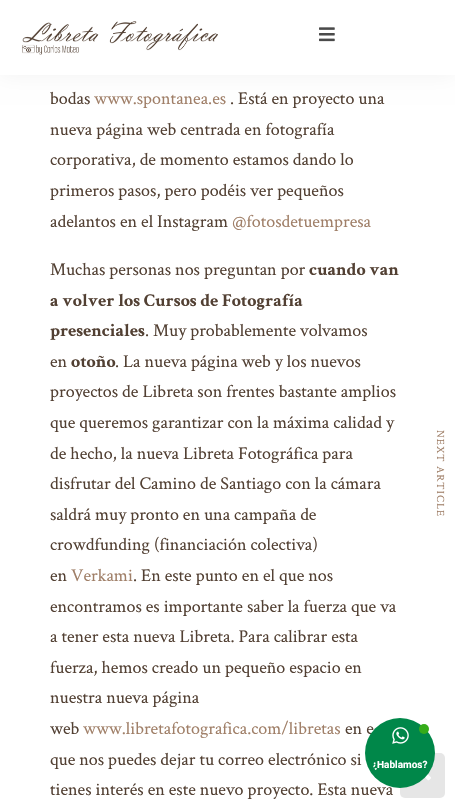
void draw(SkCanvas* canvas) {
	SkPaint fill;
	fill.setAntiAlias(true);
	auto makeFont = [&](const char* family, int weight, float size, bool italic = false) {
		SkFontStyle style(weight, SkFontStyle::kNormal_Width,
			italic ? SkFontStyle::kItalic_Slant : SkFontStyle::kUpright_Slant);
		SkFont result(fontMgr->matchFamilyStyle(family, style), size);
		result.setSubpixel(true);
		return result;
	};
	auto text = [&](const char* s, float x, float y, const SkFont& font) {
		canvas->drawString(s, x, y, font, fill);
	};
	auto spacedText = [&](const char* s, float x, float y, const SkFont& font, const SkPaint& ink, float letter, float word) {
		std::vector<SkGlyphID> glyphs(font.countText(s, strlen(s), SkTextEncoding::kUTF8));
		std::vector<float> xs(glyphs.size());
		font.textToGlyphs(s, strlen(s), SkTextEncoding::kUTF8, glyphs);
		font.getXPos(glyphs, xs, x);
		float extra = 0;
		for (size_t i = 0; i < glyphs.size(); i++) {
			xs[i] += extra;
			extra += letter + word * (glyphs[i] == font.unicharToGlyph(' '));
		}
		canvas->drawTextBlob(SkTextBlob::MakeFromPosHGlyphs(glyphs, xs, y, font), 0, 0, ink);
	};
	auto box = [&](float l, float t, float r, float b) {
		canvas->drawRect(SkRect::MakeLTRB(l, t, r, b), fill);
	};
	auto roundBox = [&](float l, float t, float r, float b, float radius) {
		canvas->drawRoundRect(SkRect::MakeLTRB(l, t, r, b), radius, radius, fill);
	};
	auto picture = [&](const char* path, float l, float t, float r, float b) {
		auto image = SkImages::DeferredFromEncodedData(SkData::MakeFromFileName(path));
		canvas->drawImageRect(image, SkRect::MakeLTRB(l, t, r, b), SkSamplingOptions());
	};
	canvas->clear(0xFFFFFFFF);
	fill.setColor(0x0D000000);
	fill.setMaskFilter(SkMaskFilter::MakeBlur(kNormal_SkBlurStyle, 10));
	canvas->drawRect(SkRect::MakeLTRB(0, 0, 455, 75), fill);
	fill.setMaskFilter(nullptr);
	fill.setColor(0xFFFFFFFF);
	box(0, 0, 455, 75);
	picture("image0.png", 22, 21, 218, 55);
	picture("image1.png", 319, 27, 335, 42);
	fill.setColor(0xFFE6E6E6);
	roundBox(400, 753, 445, 798, 5);
	picture("image2.png", 424, 774, 431, 781);
	auto font1 = makeFont("Crimson Text", 400, 18);
	fill.setColor(0xFF524033);
	text("bodas", 50, 104, font1);
	fill.setColor(0xFFA07F68);
	text("www.spontanea.es", 94, 104, font1);
	fill.setColor(0xFF524033);
	text(". Está en proyecto una", 230, 104, font1);
	text("nueva página web centrada en fotografía", 50, 135, font1);
	text("corporativa, de momento estamos dando lo", 50, 165, font1);
	text("primeros pasos, pero podéis ver pequeños", 50, 196, font1);
	text("adelantos en el Instagram", 50, 227, font1);
	fill.setColor(0xFFA07F68);
	text("@fotosdetuempresa", 232, 227, font1);
	fill.setColor(0xFF524033);
	text("Muchas personas nos preguntan por", 50, 275, font1);
	auto font2 = makeFont("Crimson Text", 700, 18);
	text("cuando van", 309, 275, font2);
	text("a volver los Cursos de Fotografía", 50, 306, font2);
	text("presenciales", 50, 336, font2);
	text(". Muy probablemente volvamos", 145, 336, font1);
	text("en", 50, 367, font1);
	text("otoño", 71, 367, font2);
	text(". La nueva página web y los nuevos", 115, 367, font1);
	text("proyectos de Libreta son frentes bastante amplios", 50, 397, font1);
	text("que queremos garantizar con la máxima calidad y", 50, 428, font1);
	text("de hecho, la nueva Libreta Fotográfica para", 50, 459, font1);
	text("disfrutar del Camino de Santiago con la cámara", 50, 489, font1);
	text("saldrá muy pronto en una campaña de", 50, 520, font1);
	text("crowdfunding (financiación colectiva)", 50, 550, font1);
	text("en", 50, 581, font1);
	fill.setColor(0xFFA07F68);
	text("Verkami", 71, 581, font1);
	fill.setColor(0xFF524033);
	text(". En este punto en el que nos", 133, 581, font1);
	text("encontramos es importante saber la fuerza que va", 50, 612, font1);
	text("a tener esta nueva Libreta. Para calibrar esta", 50, 642, font1);
	text("fuerza, hemos creado un pequeño espacio en", 50, 673, font1);
	text("nuestra nueva página", 50, 703, font1);
	text("web", 50, 734, font1);
	fill.setColor(0xFFA07F68);
	text("www.libretafotografica.com/libretas", 83, 734, font1);
	fill.setColor(0xFF524033);
	text("en e", 345, 734, font1);
	text("que nos puedes dejar tu correo electrónico si", 50, 765, font1);
	text("tienes interés en este nuevo proyecto. Esta nueva", 50, 795, font1);
	auto font3 = makeFont("Crimson Text", 400, 11);
	fill.setColor(0xFFA07F68);
	canvas->save();
	canvas->rotate(90, 437, 430);
	spacedText("NEXT ARTICLE", 437, 430, font3, fill, 1, 0);
	canvas->restore();
	fill.setColor(0xFF008749);
	canvas->drawCircle(400, 753, 35, fill);
	fill.setColor(0xFF35AC19);
	canvas->drawCircle(424, 729, 5, fill);
	picture("image3.png", 392, 727, 409, 744);
	canvas->save();
	canvas->clipPath(SkPathBuilder().moveTo(400, 723).cubicTo(416.5f, 723, 430, 736.5f, 430, 753).cubicTo(430, 769.5f, 416.5f, 783, 400, 783).cubicTo(383.5f, 783, 370, 769.5f, 370, 753).cubicTo(370, 736.5f, 383.5f, 723, 400, 723).close().detach(), true);
	auto font4 = makeFont("Roboto", 700, 10);
	fill.setColor(0xFFFFFFFF);
	text("¿Hablamos?", 372, 768, font4);
	canvas->restore();
}
